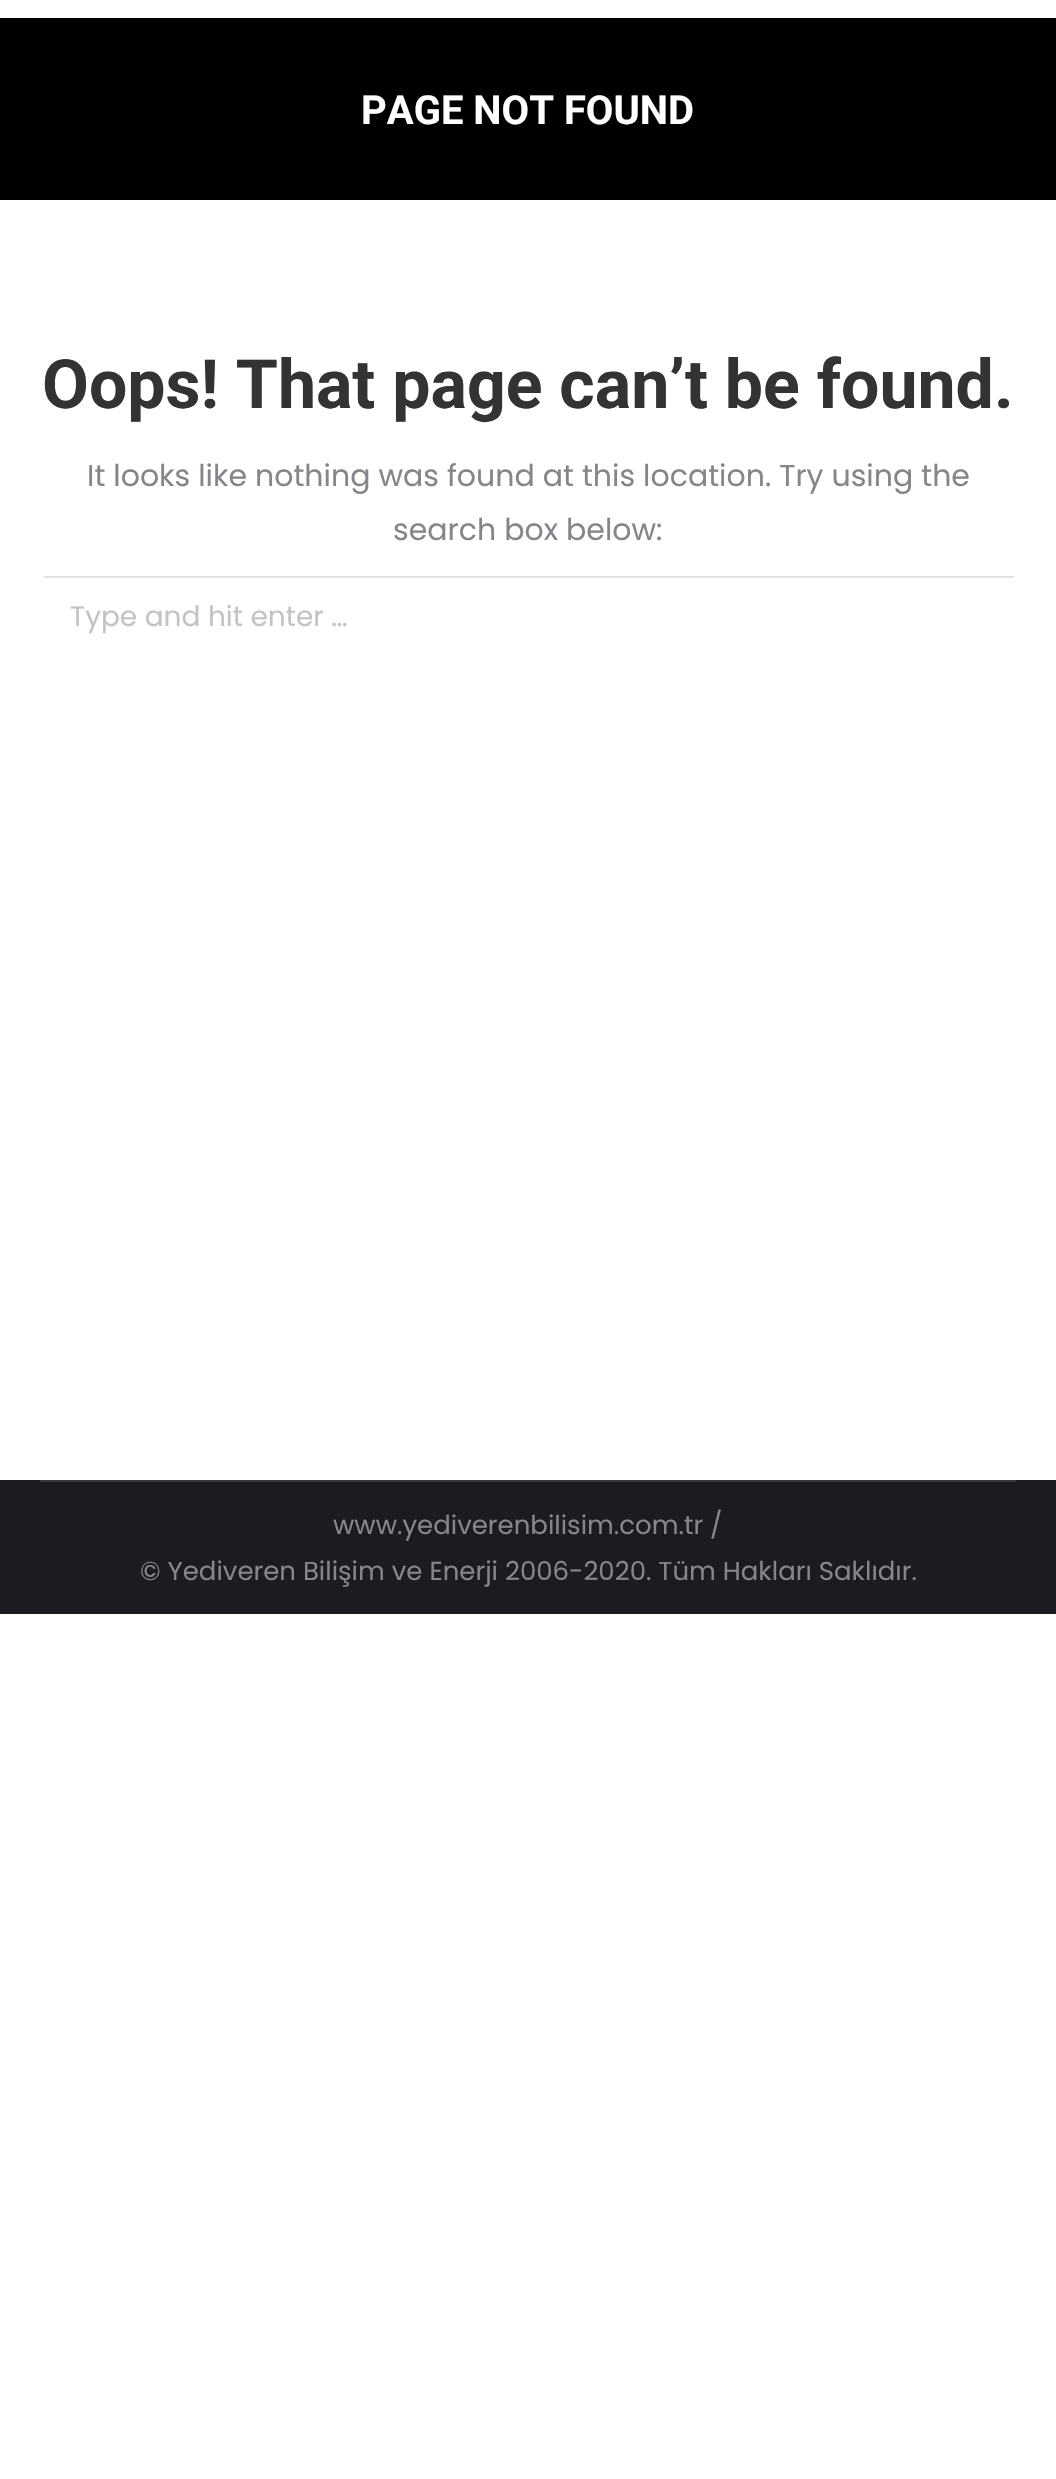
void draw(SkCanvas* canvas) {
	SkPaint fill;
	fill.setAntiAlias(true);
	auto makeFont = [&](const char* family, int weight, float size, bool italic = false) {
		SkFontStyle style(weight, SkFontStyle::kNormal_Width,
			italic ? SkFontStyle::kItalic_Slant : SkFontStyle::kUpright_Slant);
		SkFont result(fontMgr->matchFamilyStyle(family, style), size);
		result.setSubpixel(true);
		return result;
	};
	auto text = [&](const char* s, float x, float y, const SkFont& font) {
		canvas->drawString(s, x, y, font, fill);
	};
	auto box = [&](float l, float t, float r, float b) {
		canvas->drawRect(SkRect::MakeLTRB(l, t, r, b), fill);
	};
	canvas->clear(0xFFFFFFFF);
	fill.setColor(0xFF000000);
	box(0, 18, 1056, 200);
	fill.setColor(0xFFE2E2E2);
	box(44, 576, 1014, 578);
	fill.setColor(0xFF1A1C20);
	box(0, 1480, 1056, 1614);
	fill.setColor(0xFF35373B);
	box(40, 1480, 1016, 1482);
	auto font1 = makeFont("Roboto", 700, 40);
	fill.setColor(0xFFFFFFFF);
	text("PAGE NOT FOUND", 361, 124, font1);
	auto font2 = makeFont("Roboto", 700, 68);
	fill.setColor(0xFF333333);
	text("Oops! That page can’t be found.", 42, 408, font2);
	auto font3 = makeFont("Poppins", 400, 30);
	fill.setColor(0xFF85868C);
	text("It looks like nothing was found at this location. Try using the", 87, 486, font3);
	text("search box below:", 393, 540, font3);
	auto font4 = makeFont("Poppins", 400, 28);
	fill.setColor(0xFFC2C3C6);
	text("Type and hit enter …", 70, 626, font4);
	auto font5 = makeFont("Poppins", 400, 26);
	fill.setColor(0xFF85868C);
	text("www.yediverenbilisim.com.tr /", 333, 1534, font5);
	text("© Yediveren Bilişim ve Enerji 2006-2020. Tüm Hakları Saklıdır.", 140, 1580, font5);
}
